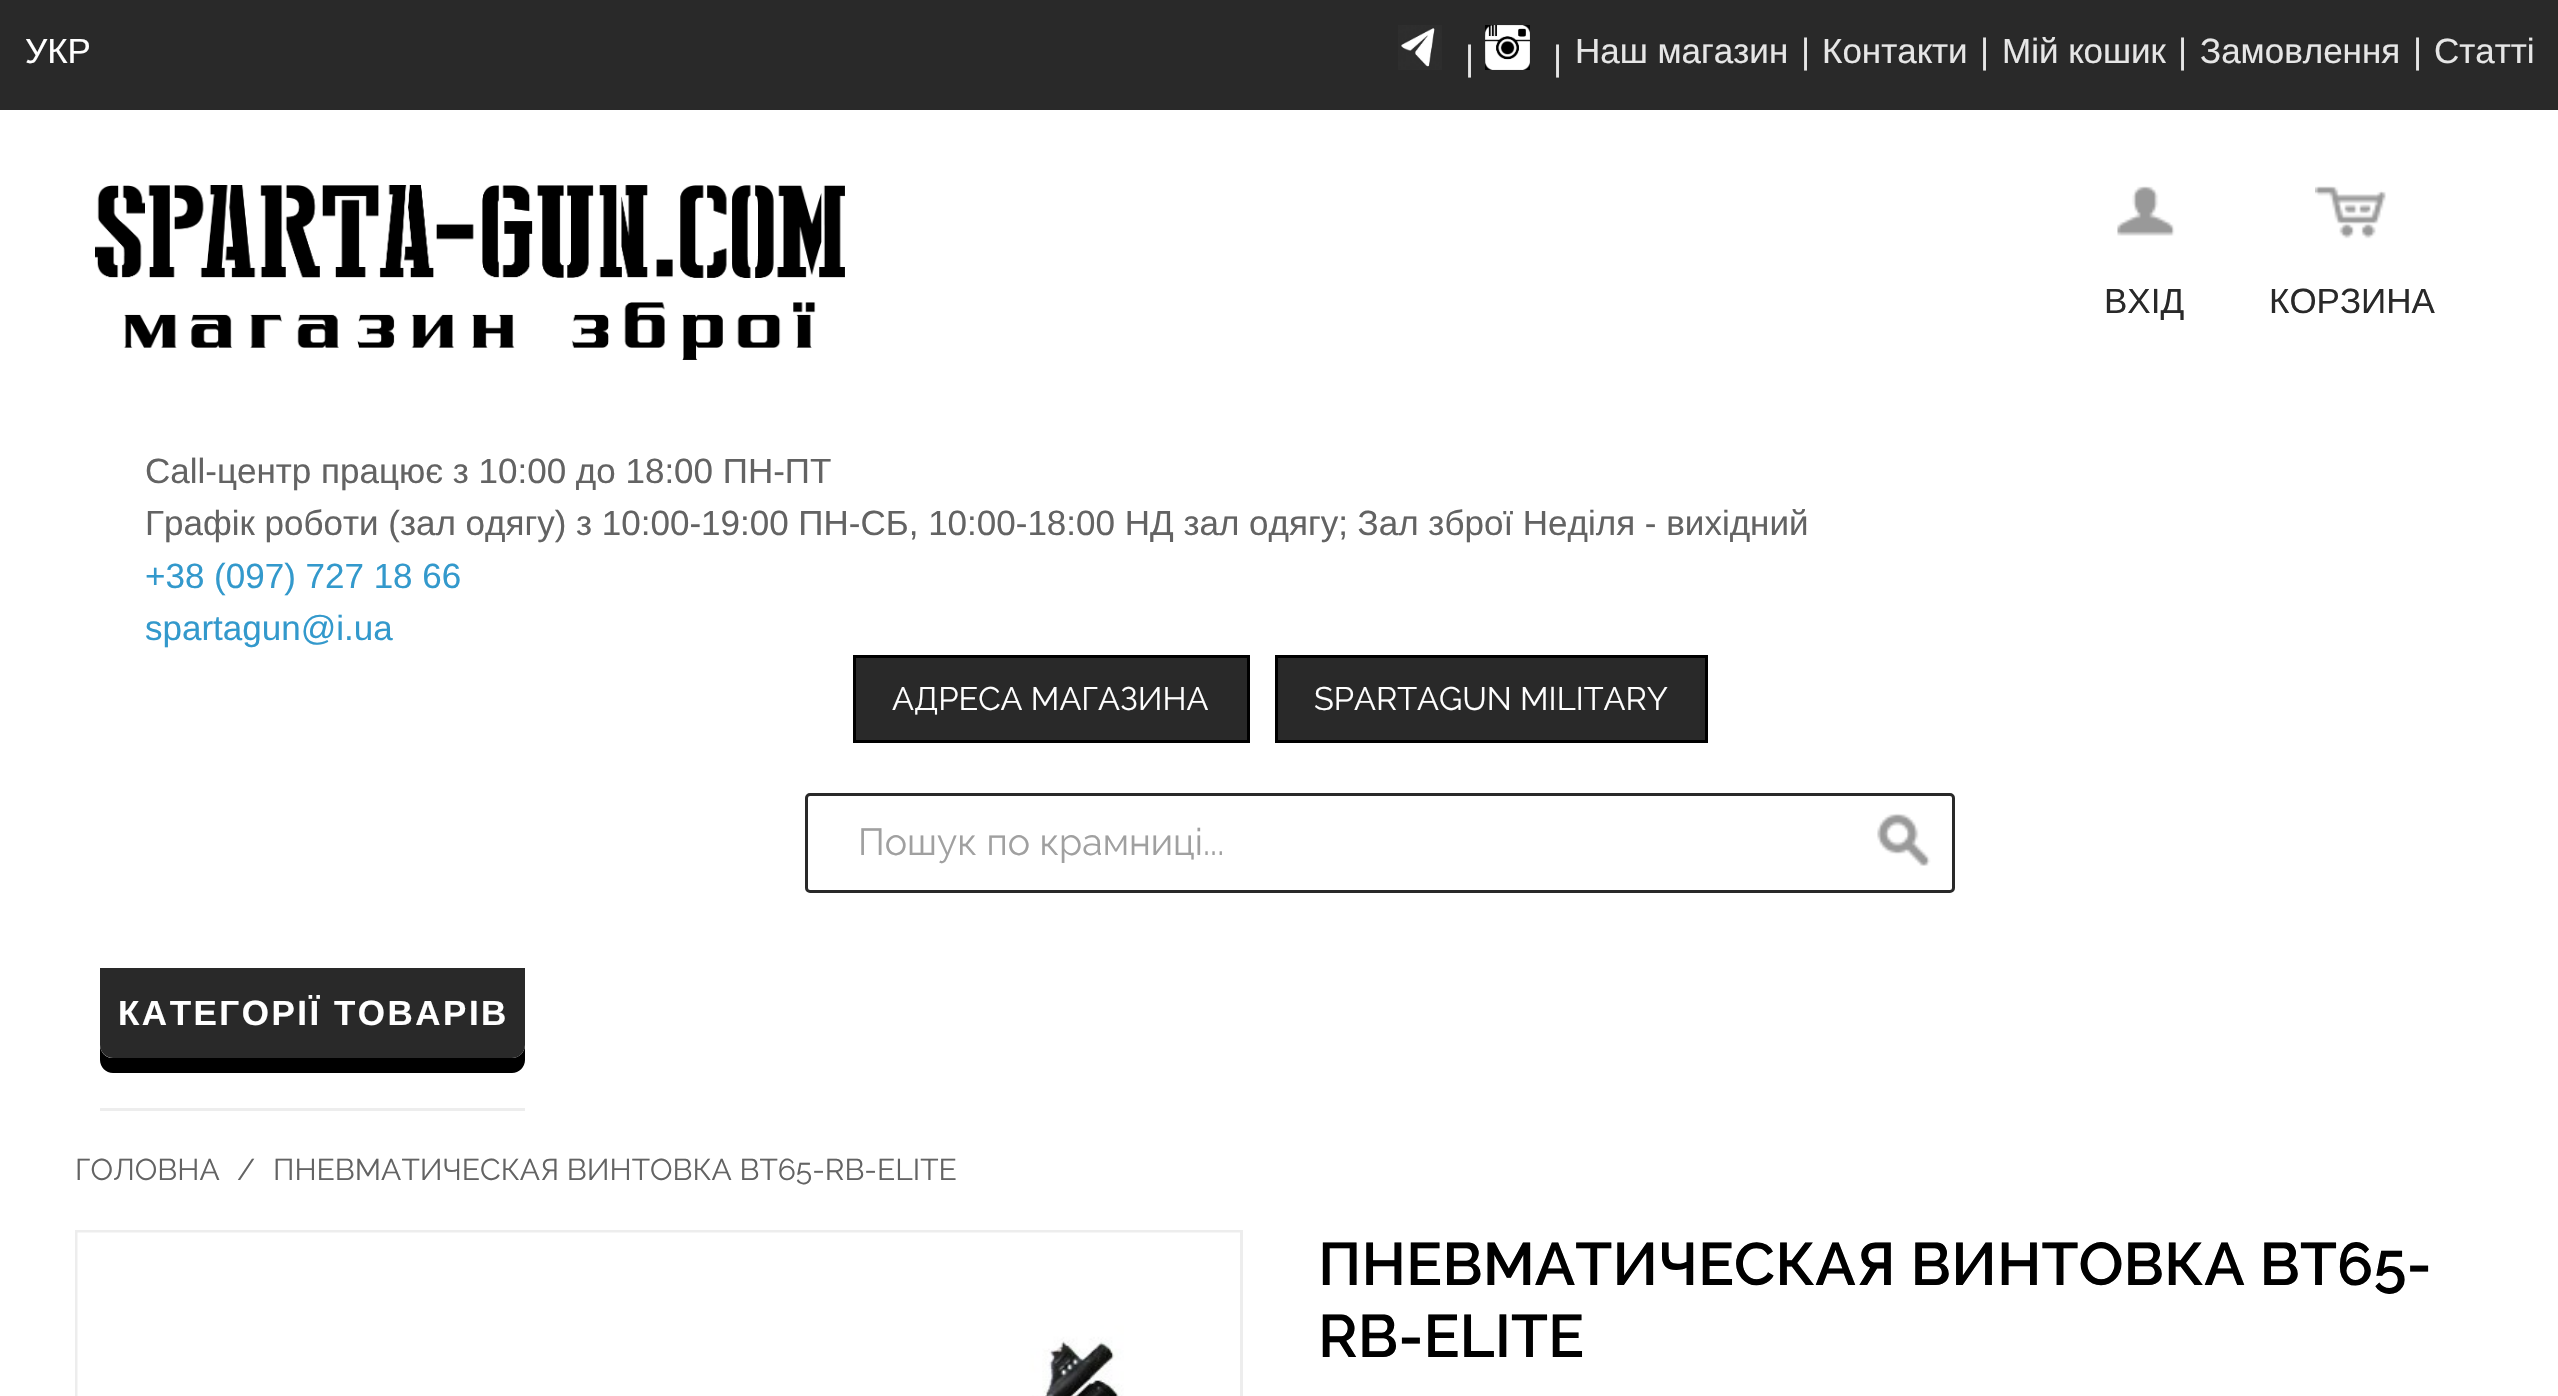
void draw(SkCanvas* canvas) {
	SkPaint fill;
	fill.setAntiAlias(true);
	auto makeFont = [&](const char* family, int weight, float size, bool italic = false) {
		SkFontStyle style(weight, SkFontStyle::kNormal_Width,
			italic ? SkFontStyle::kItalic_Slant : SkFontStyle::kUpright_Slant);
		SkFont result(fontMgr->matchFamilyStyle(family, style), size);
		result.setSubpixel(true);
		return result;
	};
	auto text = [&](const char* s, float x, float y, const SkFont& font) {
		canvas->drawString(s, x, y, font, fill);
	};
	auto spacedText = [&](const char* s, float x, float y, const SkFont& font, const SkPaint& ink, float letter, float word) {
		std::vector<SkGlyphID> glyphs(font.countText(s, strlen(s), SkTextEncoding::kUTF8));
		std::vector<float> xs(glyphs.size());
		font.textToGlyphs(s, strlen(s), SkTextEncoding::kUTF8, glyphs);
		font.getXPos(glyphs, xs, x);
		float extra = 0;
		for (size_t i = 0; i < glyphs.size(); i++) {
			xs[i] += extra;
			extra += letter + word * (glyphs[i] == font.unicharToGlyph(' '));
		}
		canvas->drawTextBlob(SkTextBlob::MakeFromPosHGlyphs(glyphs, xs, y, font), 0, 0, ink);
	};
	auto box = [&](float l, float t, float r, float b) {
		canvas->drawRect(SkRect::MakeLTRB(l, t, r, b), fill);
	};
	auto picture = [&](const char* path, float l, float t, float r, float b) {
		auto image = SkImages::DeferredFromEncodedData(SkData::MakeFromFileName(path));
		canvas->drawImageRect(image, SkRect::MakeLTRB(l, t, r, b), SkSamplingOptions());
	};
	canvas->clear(0xFFFFFFFF);
	fill.setColor(0xFF292929);
	box(0, 0, 2558, 110);
	picture("image0.png", 1398, 25, 1442, 70);
	picture("image1.png", 1485, 25, 1530, 70);
	picture("image2.png", 95, 185, 845, 360);
	picture("image3.png", 2117, 186, 2175, 236);
	picture("image4.png", 2315, 186, 2386, 239);
	canvas->drawRect(SkRect::MakeLTRB(854.5f, 656.5f, 1248.5f, 741.5f), fill);
	fill.setStyle(SkPaint::kStroke_Style);
	fill.setStrokeWidth(3);
	fill.setColor(0xFF000000);
	canvas->drawRect(SkRect::MakeLTRB(854.5f, 656.5f, 1248.5f, 741.5f), fill);
	fill.setStyle(SkPaint::kFill_Style);
	fill.setColor(0xFF292929);
	canvas->drawRect(SkRect::MakeLTRB(1276.5f, 656.5f, 1706.5f, 741.5f), fill);
	fill.setStyle(SkPaint::kStroke_Style);
	fill.setColor(0xFF000000);
	canvas->drawRect(SkRect::MakeLTRB(1276.5f, 656.5f, 1706.5f, 741.5f), fill);
	fill.setColor(0xFF292929);
	canvas->drawRoundRect(SkRect::MakeLTRB(806.5f, 794.5f, 1953.5f, 891.5f), 3.5f, 3.5f, fill);
	picture("image5.png", 1877, 813, 1931, 866);
	fill.setStyle(SkPaint::kFill_Style);
	fill.setColor(0xFFEDEDED);
	box(100, 1108, 525, 1111);
	fill.setColor(0xFF000000);
	canvas->drawPath(SkPathBuilder().moveTo(100, 1045).lineTo(100, 1060).cubicTo(100, 1067, 106, 1073, 113, 1073).lineTo(512, 1073).cubicTo(519, 1073, 525, 1067, 525, 1060).lineTo(525, 1045).cubicTo(525, 1052, 519, 1058, 512, 1058).lineTo(112, 1058).cubicTo(106, 1058, 100, 1052, 100, 1045).close().detach(), fill);
	fill.setColor(0xFF292929);
	canvas->drawPath(SkPathBuilder().moveTo(100, 968).lineTo(525, 968).lineTo(525, 1045).cubicTo(525, 1052, 519, 1058, 512, 1058).lineTo(113, 1058).cubicTo(106, 1058, 100, 1052, 100, 1045).close().detach(), fill);
	fill.setStyle(SkPaint::kStroke_Style);
	fill.setColor(0xFFEDEDED);
	canvas->drawRect(SkRect::MakeLTRB(76.5f, 1231.5f, 1241.5f, 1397.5f), fill);
	picture("image6.png", 77, 1232, 1240, 1396);
	auto font1 = makeFont("Liberation Sans", 400, 35);
	fill.setStyle(SkPaint::kFill_Style);
	fill.setColor(0xFFFFFFFF);
	text("УКР", 25, 63, font1);
	fill.setColor(0xFFE6E6E6);
	text("|", 1465, 70, font1);
	text("|", 1553, 70, font1);
	text("Наш магазин", 1575, 63, font1);
	text("|", 1801, 63, font1);
	text("Контакти", 1822, 63, font1);
	text("|", 1980, 63, font1);
	text("Мій кошик", 2002, 63, font1);
	text("|", 2178, 63, font1);
	text("Замовлення", 2200, 63, font1);
	text("|", 2413, 63, font1);
	text("Статті", 2434, 63, font1);
	fill.setColor(0xFF292929);
	text("ВХІД", 2104, 313, font1);
	text("КОРЗИНА", 2269, 313, font1);
	fill.setColor(0xFF636363);
	text("Call-центр працює з 10:00 до 18:00 ПН-ПТ", 145, 483, font1);
	text("Графік роботи (зал одягу) з 10:00-19:00 ПН-СБ, 10:00-18:00 НД зал одягу; Зал зброї Неділя - вихідний", 145, 535, font1);
	fill.setColor(0xFF3399CC);
	text("+38 (097) 727 18 66", 145, 588, font1);
	text("spartagun@i.ua", 145, 640, font1);
	auto font2 = makeFont("Raleway", 400, 32.5f);
	fill.setColor(0xFFFFFFFF);
	text("АДРЕСА МАГАЗИНА", 892, 710, font2);
	text("SPARTAGUN MILITARY", 1314, 710, font2);
	auto font3 = makeFont("Raleway", 400, 37.5f);
	fill.setColor(0xFFA0A0A0);
	text("Пошук по крамниці...", 858, 855, font3);
	auto font4 = makeFont("Liberation Sans", 700, 35);
	fill.setColor(0xFFFFFFFF);
	spacedText("КАТЕГОРІЇ ТОВАРІВ", 118, 1025, font4, fill, 2.5f, 0);
	auto font5 = makeFont("Raleway", 400, 30);
	fill.setColor(0xFF636363);
	text("ГОЛОВНА", 75, 1180, font5);
	text("/", 237, 1180, font5);
	text("ПНЕВМАТИЧЕСКАЯ ВИНТОВКА BT65-RB-ELITE", 273, 1180, font5);
	auto font6 = makeFont("Raleway", 600, 60);
	fill.setColor(0xFF000000);
	text("ПНЕВМАТИЧЕСКАЯ ВИНТОВКА BT65-", 1318, 1285, font6);
	text("RB-ELITE", 1318, 1357, font6);
}
